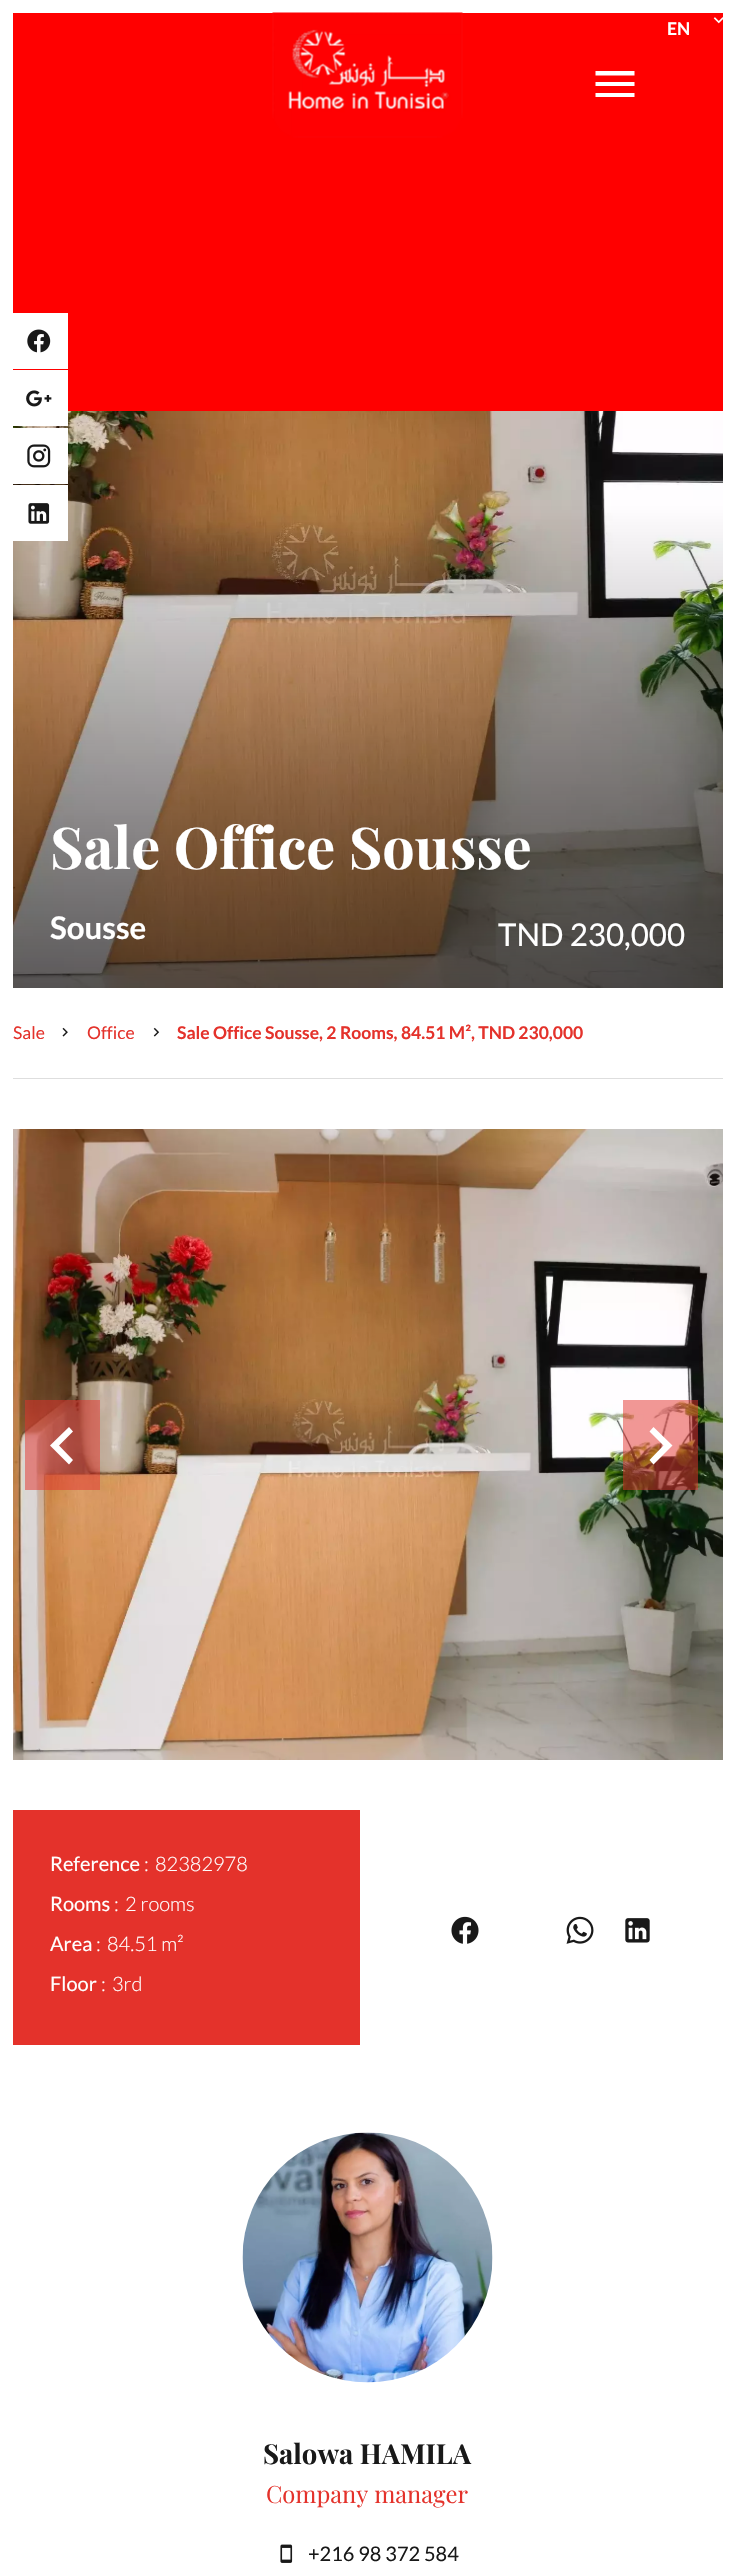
void draw(SkCanvas* canvas) {
	SkPaint fill;
	fill.setAntiAlias(true);
	auto makeFont = [&](const char* family, int weight, float size, bool italic = false) {
		SkFontStyle style(weight, SkFontStyle::kNormal_Width,
			italic ? SkFontStyle::kItalic_Slant : SkFontStyle::kUpright_Slant);
		SkFont result(fontMgr->matchFamilyStyle(family, style), size);
		result.setSubpixel(true);
		return result;
	};
	auto text = [&](const char* s, float x, float y, const SkFont& font) {
		canvas->drawString(s, x, y, font, fill);
	};
	auto box = [&](float l, float t, float r, float b) {
		canvas->drawRect(SkRect::MakeLTRB(l, t, r, b), fill);
	};
	auto picture = [&](const char* path, float l, float t, float r, float b) {
		auto image = SkImages::DeferredFromEncodedData(SkData::MakeFromFileName(path));
		canvas->drawImageRect(image, SkRect::MakeLTRB(l, t, r, b), SkSamplingOptions());
	};
	canvas->clear(0xFFFFFFFF);
	fill.setColor(0xFFFF0000);
	box(13, 13, 723, 411);
	picture("image0.png", 272, 12, 463, 138);
	picture("image1.png", 713, 17, 723, 24);
	fill.setColor(0xFFFFFFFF);
	canvas->drawPath(SkPathBuilder().moveTo(595.5f, 71).lineTo(634.5f, 71).lineTo(634.5f, 75.5f).lineTo(595.5f, 75.5f).close().moveTo(595.5f, 82).lineTo(634.5f, 82).lineTo(634.5f, 86).lineTo(595.5f, 86).close().moveTo(595.5f, 93).lineTo(634.5f, 93).lineTo(634.5f, 97).lineTo(595.5f, 97).close().detach(), fill);
	box(13, 313, 68, 369);
	picture("image2.png", 27, 329, 51, 353);
	picture("image6.png", 13, 411, 723, 988);
	box(13, 370, 68, 426);
	picture("image3.png", 26, 390, 52, 407);
	box(13, 428, 68, 484);
	picture("image4.png", 27, 444, 51, 468);
	box(13, 485, 68, 541);
	picture("image5.png", 28, 503, 50, 524);
	fill.setColor(0xFFDEDEDE);
	box(13, 1078, 723, 1079);
	picture("image7.png", 62, 1027, 68, 1037);
	picture("image8.png", 153, 1027, 160, 1037);
	picture("image9.png", 13, 1129, 723, 1760);
	fill.setColor(0x80E4322B);
	box(25, 1400, 100, 1490);
	fill.setColor(0xFFFFFFFF);
	canvas->drawPath(SkPathBuilder().moveTo(73, 1460).lineTo(59, 1445.5f).lineTo(73, 1431.5f).lineTo(69, 1427).lineTo(50, 1445.5f).lineTo(69, 1464.5f).close().detach(), fill);
	fill.setColor(0x80E4322B);
	box(623, 1400, 698, 1490);
	fill.setColor(0xFFFFFFFF);
	canvas->drawPath(SkPathBuilder().moveTo(649.5f, 1460).lineTo(663.5f, 1445.5f).lineTo(649.5f, 1431.5f).lineTo(653.5f, 1427).lineTo(672.5f, 1445.5f).lineTo(653.5f, 1464.5f).close().detach(), fill);
	fill.setColor(0xFFE4322B);
	box(13, 1810, 360, 2045);
	picture("image10.png", 451, 1916, 479, 1944);
	picture("image11.png", 566, 1916, 594, 1944);
	picture("image12.png", 625, 1918, 650, 1943);
	picture("image13.png", 242, 2132, 493, 2383);
	picture("image14.png", 280, 2544, 293, 2563);
	auto font1 = makeFont("Lato", 700, 17.5f);
	fill.setColor(0xFFFFFFFF);
	text("EN", 667, 35, font1);
	auto font2 = makeFont("Playfair Display", 700, 57.5f);
	text("Sale Office Sousse", 50, 869, font2);
	auto font3 = makeFont("Lato", 700, 31.25f);
	text("Sousse", 50, 939, font3);
	auto font4 = makeFont("Lato", 400, 31.25f);
	text("TND 230,000", 498, 946, font4);
	auto font5 = makeFont("Lato", 400, 17.5f);
	fill.setColor(0xFFE4322B);
	text("Sale", 13, 1039, font5);
	text("Office", 87, 1039, font5);
	text("Sale Office Sousse, 2 Rooms, 84.51 M², TND 230,000", 177, 1039, font1);
	auto font6 = makeFont("Lato", 400, 20);
	fill.setColor(0xFFFFFFFF);
	text("Reference", 50, 1871, font6);
	auto font7 = makeFont("Lato", 300, 20);
	text(":", 144, 1871, font7);
	text("82382978", 155, 1871, font7);
	text("Rooms", 50, 1911, font6);
	text(":", 114, 1911, font7);
	text("2 rooms", 125, 1911, font7);
	text("Area", 50, 1951, font6);
	text(":", 96, 1951, font7);
	text("84.51 m²", 107, 1951, font7);
	text("Floor", 50, 1991, font6);
	text(":", 101, 1991, font7);
	text("3rd", 112, 1991, font7);
	auto font8 = makeFont("Playfair Display", 700, 27.5f);
	fill.setColor(0xFF191919);
	text("Salowa HAMILA", 263, 2464, font8);
	auto font9 = makeFont("Playfair Display", 400, 23.75f);
	fill.setColor(0xFFE4322B);
	text("Company manager", 266, 2503, font9);
	fill.setColor(0xFF191919);
	text("+216 98 372 584", 308, 2561, font6);
}
